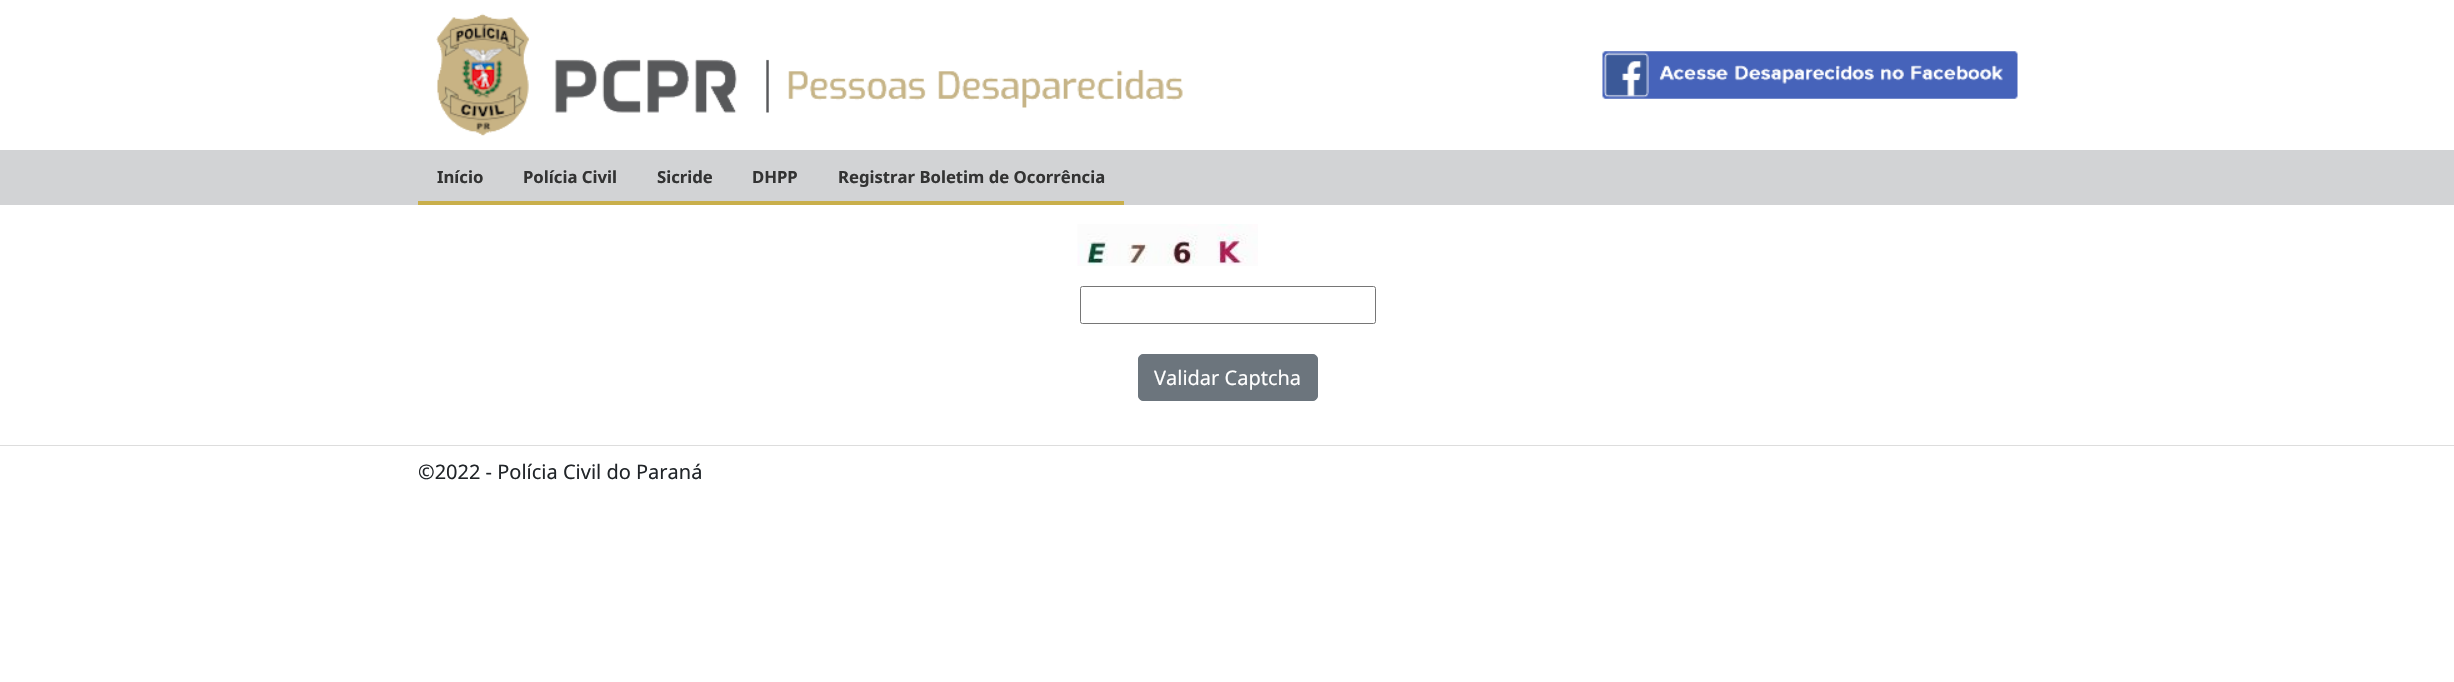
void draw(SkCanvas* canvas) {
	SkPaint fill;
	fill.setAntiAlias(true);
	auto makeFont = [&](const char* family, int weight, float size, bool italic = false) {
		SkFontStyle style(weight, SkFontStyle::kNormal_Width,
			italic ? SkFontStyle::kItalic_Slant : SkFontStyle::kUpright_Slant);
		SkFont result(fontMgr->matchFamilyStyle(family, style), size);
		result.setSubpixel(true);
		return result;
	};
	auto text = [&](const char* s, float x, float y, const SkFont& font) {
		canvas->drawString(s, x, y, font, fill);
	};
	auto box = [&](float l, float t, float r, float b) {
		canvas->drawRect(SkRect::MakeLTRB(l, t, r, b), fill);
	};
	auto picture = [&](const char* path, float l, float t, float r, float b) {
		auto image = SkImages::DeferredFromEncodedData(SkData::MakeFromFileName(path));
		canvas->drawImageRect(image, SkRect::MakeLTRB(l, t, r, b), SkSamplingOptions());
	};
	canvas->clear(0xFFFFFFFF);
	picture("image0.png", 436, 13, 1183, 136);
	picture("image1.png", 1602, 51, 2018, 99);
	fill.setColor(0xFFD2D3D5);
	box(0, 150, 2454, 205);
	fill.setColor(0xFFC9AF4B);
	box(418, 201, 1124, 205);
	picture("image2.png", 1077, 224, 1258, 266);
	fill.setStyle(SkPaint::kStroke_Style);
	fill.setStrokeWidth(1);
	fill.setColor(0xFF767676);
	canvas->drawRoundRect(SkRect::MakeLTRB(1080.5f, 286.5f, 1375.5f, 323.5f), 2, 2, fill);
	fill.setStyle(SkPaint::kFill_Style);
	fill.setColor(0xFF6C757D);
	canvas->drawRoundRect(SkRect::MakeLTRB(1138.5f, 354.5f, 1317.5f, 400.5f), 4.5f, 4.5f, fill);
	fill.setStyle(SkPaint::kStroke_Style);
	canvas->drawRoundRect(SkRect::MakeLTRB(1138.5f, 354.5f, 1317.5f, 400.5f), 4.5f, 4.5f, fill);
	fill.setStyle(SkPaint::kFill_Style);
	fill.setColor(0xFFDDDDDD);
	box(0, 445, 2454, 446);
	auto font1 = makeFont("Noto Sans", 700, 16.7f);
	fill.setColor(0xFF333333);
	text("Início", 437, 183, font1);
	text("Polícia Civil", 523, 183, font1);
	text("Sicride", 657, 183, font1);
	text("DHPP", 752, 183, font1);
	text("Registrar Boletim de Ocorrência", 838, 183, font1);
	auto font2 = makeFont("Noto Sans", 400, 20);
	fill.setColor(0xFFFFFFFF);
	text("Validar Captcha", 1154, 385, font2);
	fill.setColor(0xFF212529);
	text("©2022 - Polícia Civil do Paraná", 418, 479, font2);
}
